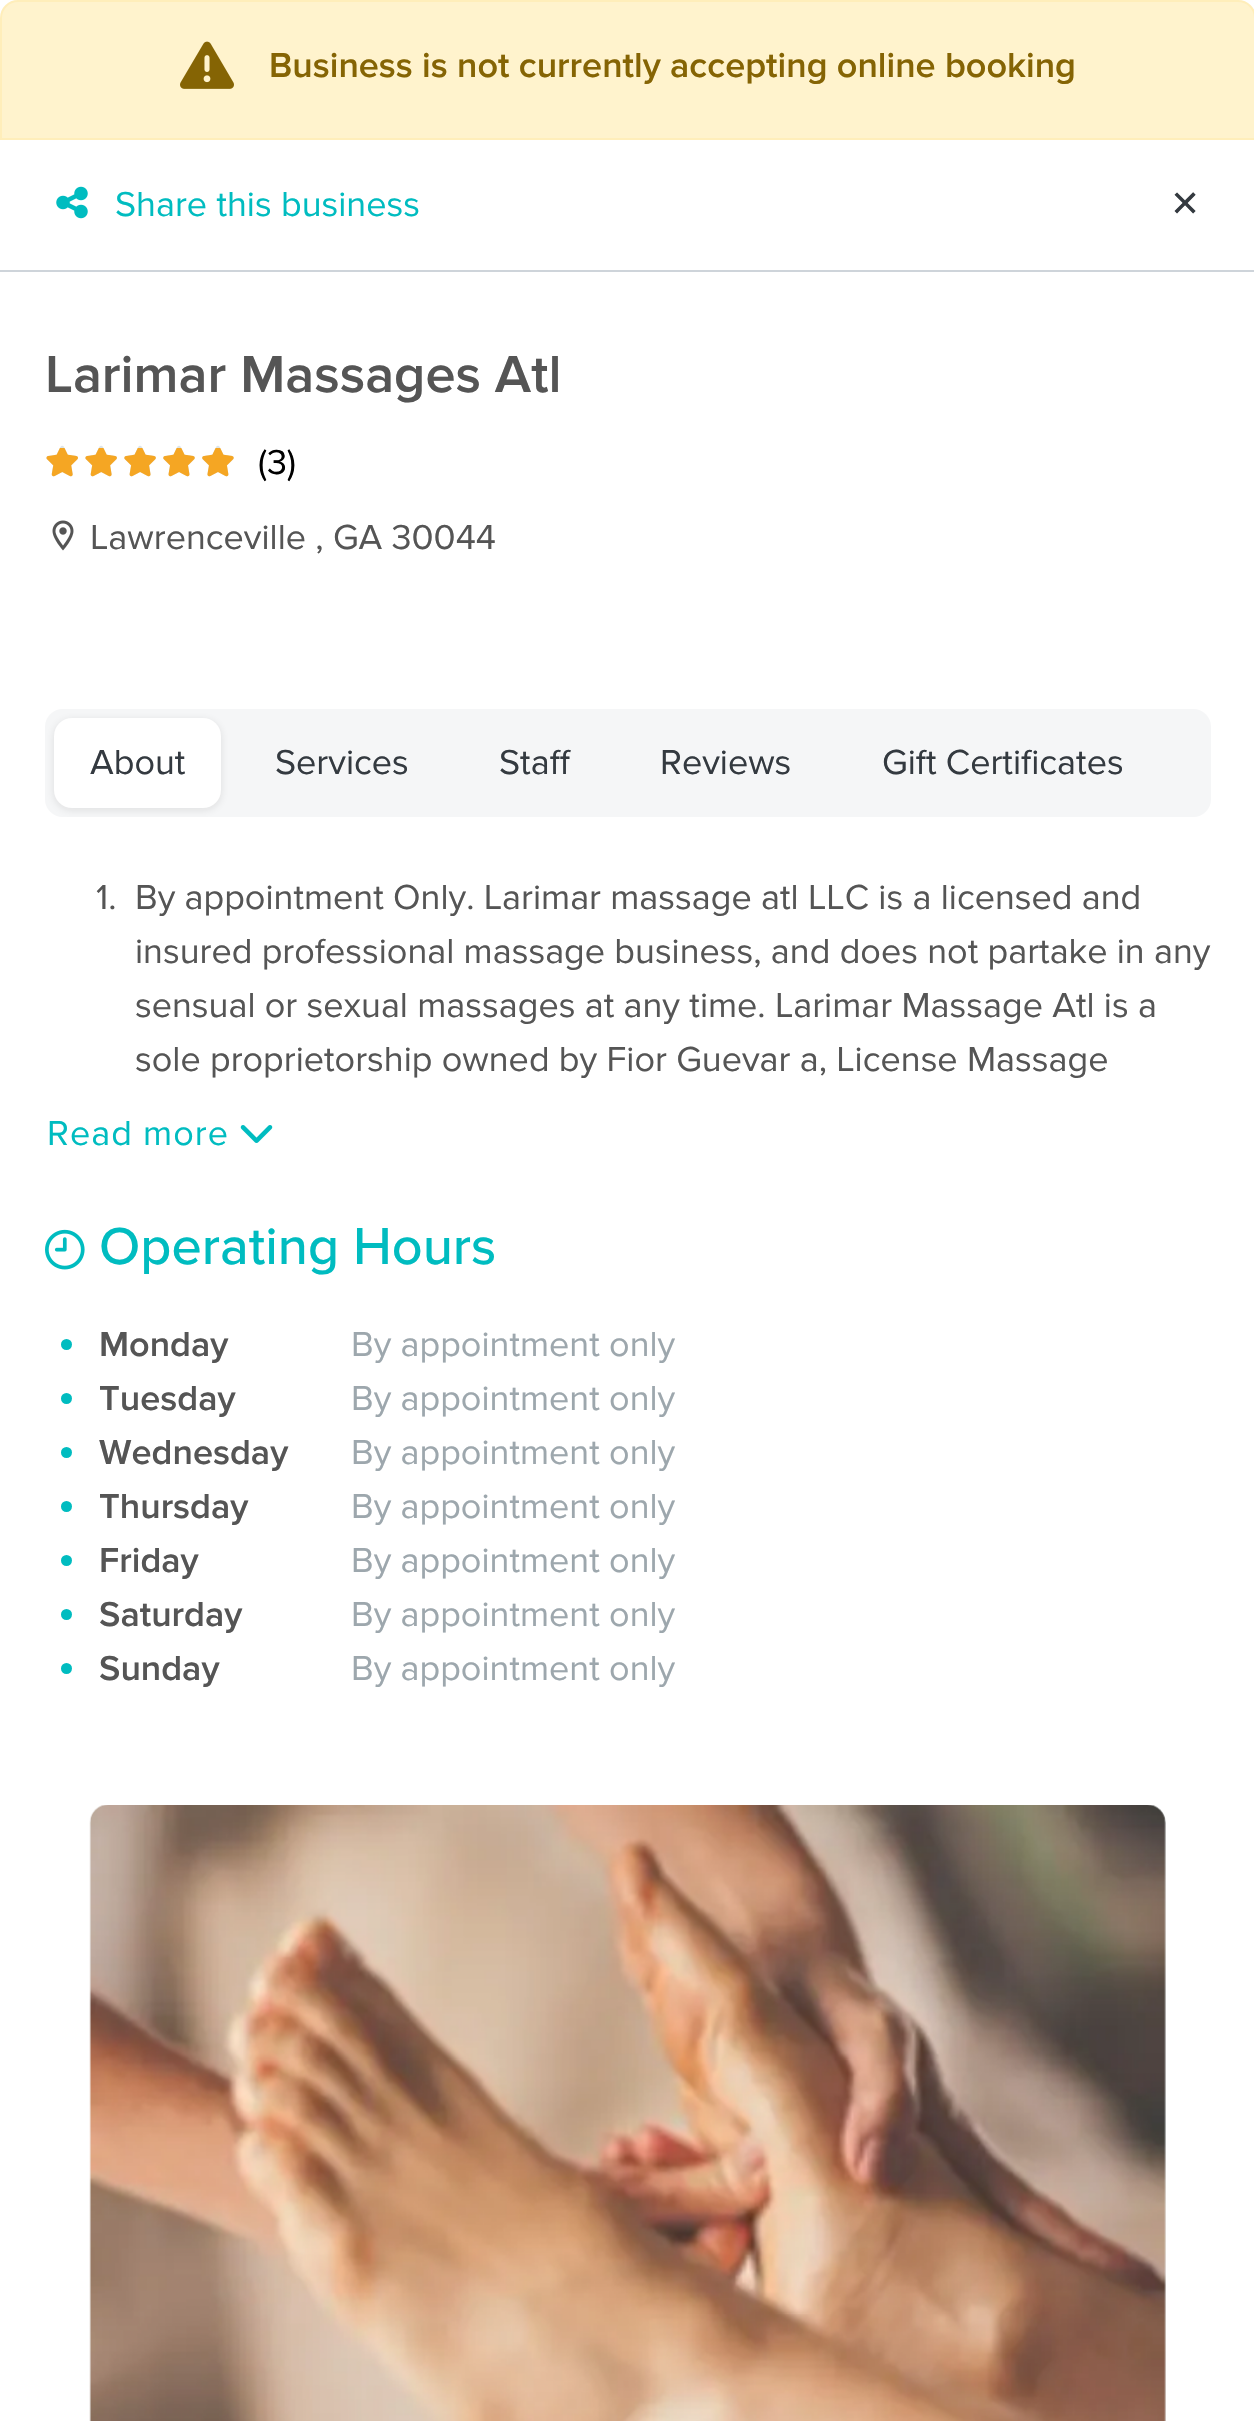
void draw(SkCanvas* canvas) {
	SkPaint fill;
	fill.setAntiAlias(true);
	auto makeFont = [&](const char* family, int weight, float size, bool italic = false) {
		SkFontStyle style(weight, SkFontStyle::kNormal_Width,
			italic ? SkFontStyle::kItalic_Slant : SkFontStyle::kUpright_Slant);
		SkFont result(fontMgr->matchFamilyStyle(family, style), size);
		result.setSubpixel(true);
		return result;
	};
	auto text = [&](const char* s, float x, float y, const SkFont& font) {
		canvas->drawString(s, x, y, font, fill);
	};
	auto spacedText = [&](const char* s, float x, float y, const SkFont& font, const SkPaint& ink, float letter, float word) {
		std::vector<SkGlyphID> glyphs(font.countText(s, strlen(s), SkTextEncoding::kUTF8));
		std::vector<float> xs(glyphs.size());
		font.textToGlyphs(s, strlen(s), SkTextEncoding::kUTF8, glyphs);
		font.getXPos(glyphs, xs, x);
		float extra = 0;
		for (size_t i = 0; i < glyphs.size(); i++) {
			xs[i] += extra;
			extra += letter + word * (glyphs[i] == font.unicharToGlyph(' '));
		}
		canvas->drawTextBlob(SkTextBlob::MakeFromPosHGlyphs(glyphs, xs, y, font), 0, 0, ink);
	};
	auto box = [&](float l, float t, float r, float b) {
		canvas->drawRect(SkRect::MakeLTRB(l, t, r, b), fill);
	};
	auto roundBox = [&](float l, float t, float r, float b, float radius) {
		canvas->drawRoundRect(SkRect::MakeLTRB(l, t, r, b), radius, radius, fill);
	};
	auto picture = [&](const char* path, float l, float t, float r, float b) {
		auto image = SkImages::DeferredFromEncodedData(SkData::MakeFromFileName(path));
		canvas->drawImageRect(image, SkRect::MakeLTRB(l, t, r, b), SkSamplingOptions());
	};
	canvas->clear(0xFFFFFFFF);
	fill.setColor(0xFFFFF3CD);
	canvas->drawPath(SkPathBuilder().moveTo(18, 1).lineTo(1238, 1).cubicTo(1247.5f, 1, 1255, 8.5f, 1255, 18).lineTo(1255, 139).lineTo(1, 139).lineTo(1, 18).cubicTo(1, 8.5f, 8.5f, 1, 18, 1).close().detach(), fill);
	fill.setStyle(SkPaint::kStroke_Style);
	fill.setStrokeWidth(2);
	fill.setColor(0xFFFFEEBA);
	canvas->drawPath(SkPathBuilder().moveTo(18, 1).lineTo(1238, 1).cubicTo(1247.5f, 1, 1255, 8.5f, 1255, 18).lineTo(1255, 139).lineTo(1, 139).lineTo(1, 18).cubicTo(1, 8.5f, 8.5f, 1, 18, 1).close().detach(), fill);
	picture("image0.png", 180, 41, 234, 89);
	fill.setStyle(SkPaint::kFill_Style);
	fill.setColor(0xFFCED4DA);
	box(0, 270, 1254, 272);
	picture("image1.png", 56, 186, 88, 219);
	picture("image2.png", 46, 445, 234, 477);
	picture("image3.png", 46, 448, 234, 477);
	picture("image4.png", 52, 520, 74, 551);
	fill.setColor(0xFFF5F6F7);
	roundBox(45, 709, 1211, 817, 18);
	fill.setColor(0x1A121212);
	fill.setMaskFilter(SkMaskFilter::MakeBlur(kNormal_SkBlurStyle, 4.5f));
	canvas->drawRoundRect(SkRect::MakeLTRB(54, 720, 221, 810), 18, 18, fill);
	fill.setMaskFilter(nullptr);
	fill.setColor(0xFFFFFFFF);
	roundBox(54, 718, 221, 808, 18);
	picture("image5.png", 240, 1125, 273, 1143);
	picture("image6.png", 45, 1229, 85, 1270);
	fill.setColor(0xFF00BCC0);
	canvas->drawCircle(66.5f, 1344.5f, 5.5f, fill);
	canvas->drawCircle(66.5f, 1398.5f, 5.5f, fill);
	canvas->drawCircle(66.5f, 1452.5f, 5.5f, fill);
	canvas->drawCircle(66.5f, 1506.5f, 5.5f, fill);
	canvas->drawCircle(66.5f, 1560.5f, 5.5f, fill);
	canvas->drawCircle(66.5f, 1614.5f, 5.5f, fill);
	canvas->drawCircle(66.5f, 1668.5f, 5.5f, fill);
	canvas->save();
	canvas->clipPath(SkPathBuilder().moveTo(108, 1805).lineTo(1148, 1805).cubicTo(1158, 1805, 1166, 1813, 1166, 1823).lineTo(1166, 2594).cubicTo(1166, 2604, 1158, 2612, 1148, 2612).lineTo(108, 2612).cubicTo(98, 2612, 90, 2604, 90, 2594).lineTo(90, 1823).cubicTo(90, 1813, 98, 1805, 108, 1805).close().detach(), true);
	fill.setColor(0x1A03464A);
	fill.setMaskFilter(SkMaskFilter::MakeBlur(kNormal_SkBlurStyle, 13.5f));
	canvas->drawRoundRect(SkRect::MakeLTRB(90, 1809, 1166, 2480), 18, 18, fill);
	fill.setMaskFilter(nullptr);
	canvas->restore();
	picture("image7.png", 89, 1805, 1166, 2421);
	auto font1 = makeFont("Proxima Nova", 600, 36);
	fill.setColor(0xFF856404);
	text("Business is not currently accepting online booking", 269, 77, font1);
	auto font2 = makeFont("Proxima Nova", 400, 36);
	fill.setColor(0xFF00BCC0);
	text("Share this business", 115, 216, font2);
	auto font3 = makeFont("DejaVu Sans", 400, 36);
	fill.setColor(0xFF343A40);
	spacedText("✕", 1170, 216, font3, fill, 1, 0);
	auto font4 = makeFont("Proxima Nova", 600, 54);
	fill.setColor(0xFF555555);
	text("Larimar Massages Atl", 45, 392, font4);
	fill.setColor(0xFF000000);
	text("(3)", 258, 474, font2);
	fill.setColor(0xFF555555);
	text("Lawrenceville , GA 30044", 90, 549, font2);
	fill.setColor(0xFF343A40);
	text("About", 90, 774, font2);
	text("Services", 275, 774, font2);
	text("Staff", 499, 774, font2);
	text("Reviews", 660, 774, font2);
	text("Gift Certificates", 882, 774, font2);
	fill.setColor(0xFF555555);
	text("1.", 96, 909, font2);
	text("By appointment Only. Larimar massage atl LLC is a licensed and", 135, 909, font2);
	text("insured professional massage business, and does not partake in any", 135, 963, font2);
	text("sensual or sexual massages at any time. Larimar Massage Atl is a", 135, 1017, font2);
	text("sole proprietorship owned by Fior Guevar a, License Massage", 135, 1071, font2);
	fill.setColor(0xFF00BCC0);
	spacedText("Read more", 47, 1145, font2, fill, 1, 0);
	auto font5 = makeFont("Proxima Nova", 500, 54);
	text("Operating Hours", 99, 1264, font5);
	fill.setColor(0xFF555555);
	text("Monday", 99, 1356, font1);
	fill.setColor(0xFF9DA7AD);
	text("By appointment only", 351, 1356, font2);
	fill.setColor(0xFF555555);
	text("Tuesday", 99, 1410, font1);
	fill.setColor(0xFF9DA7AD);
	text("By appointment only", 351, 1410, font2);
	fill.setColor(0xFF555555);
	text("Wednesday", 99, 1464, font1);
	fill.setColor(0xFF9DA7AD);
	text("By appointment only", 351, 1464, font2);
	fill.setColor(0xFF555555);
	text("Thursday", 99, 1518, font1);
	fill.setColor(0xFF9DA7AD);
	text("By appointment only", 351, 1518, font2);
	fill.setColor(0xFF555555);
	text("Friday", 99, 1572, font1);
	fill.setColor(0xFF9DA7AD);
	text("By appointment only", 351, 1572, font2);
	fill.setColor(0xFF555555);
	text("Saturday", 99, 1626, font1);
	fill.setColor(0xFF9DA7AD);
	text("By appointment only", 351, 1626, font2);
	fill.setColor(0xFF555555);
	text("Sunday", 99, 1680, font1);
	fill.setColor(0xFF9DA7AD);
	text("By appointment only", 351, 1680, font2);
}
